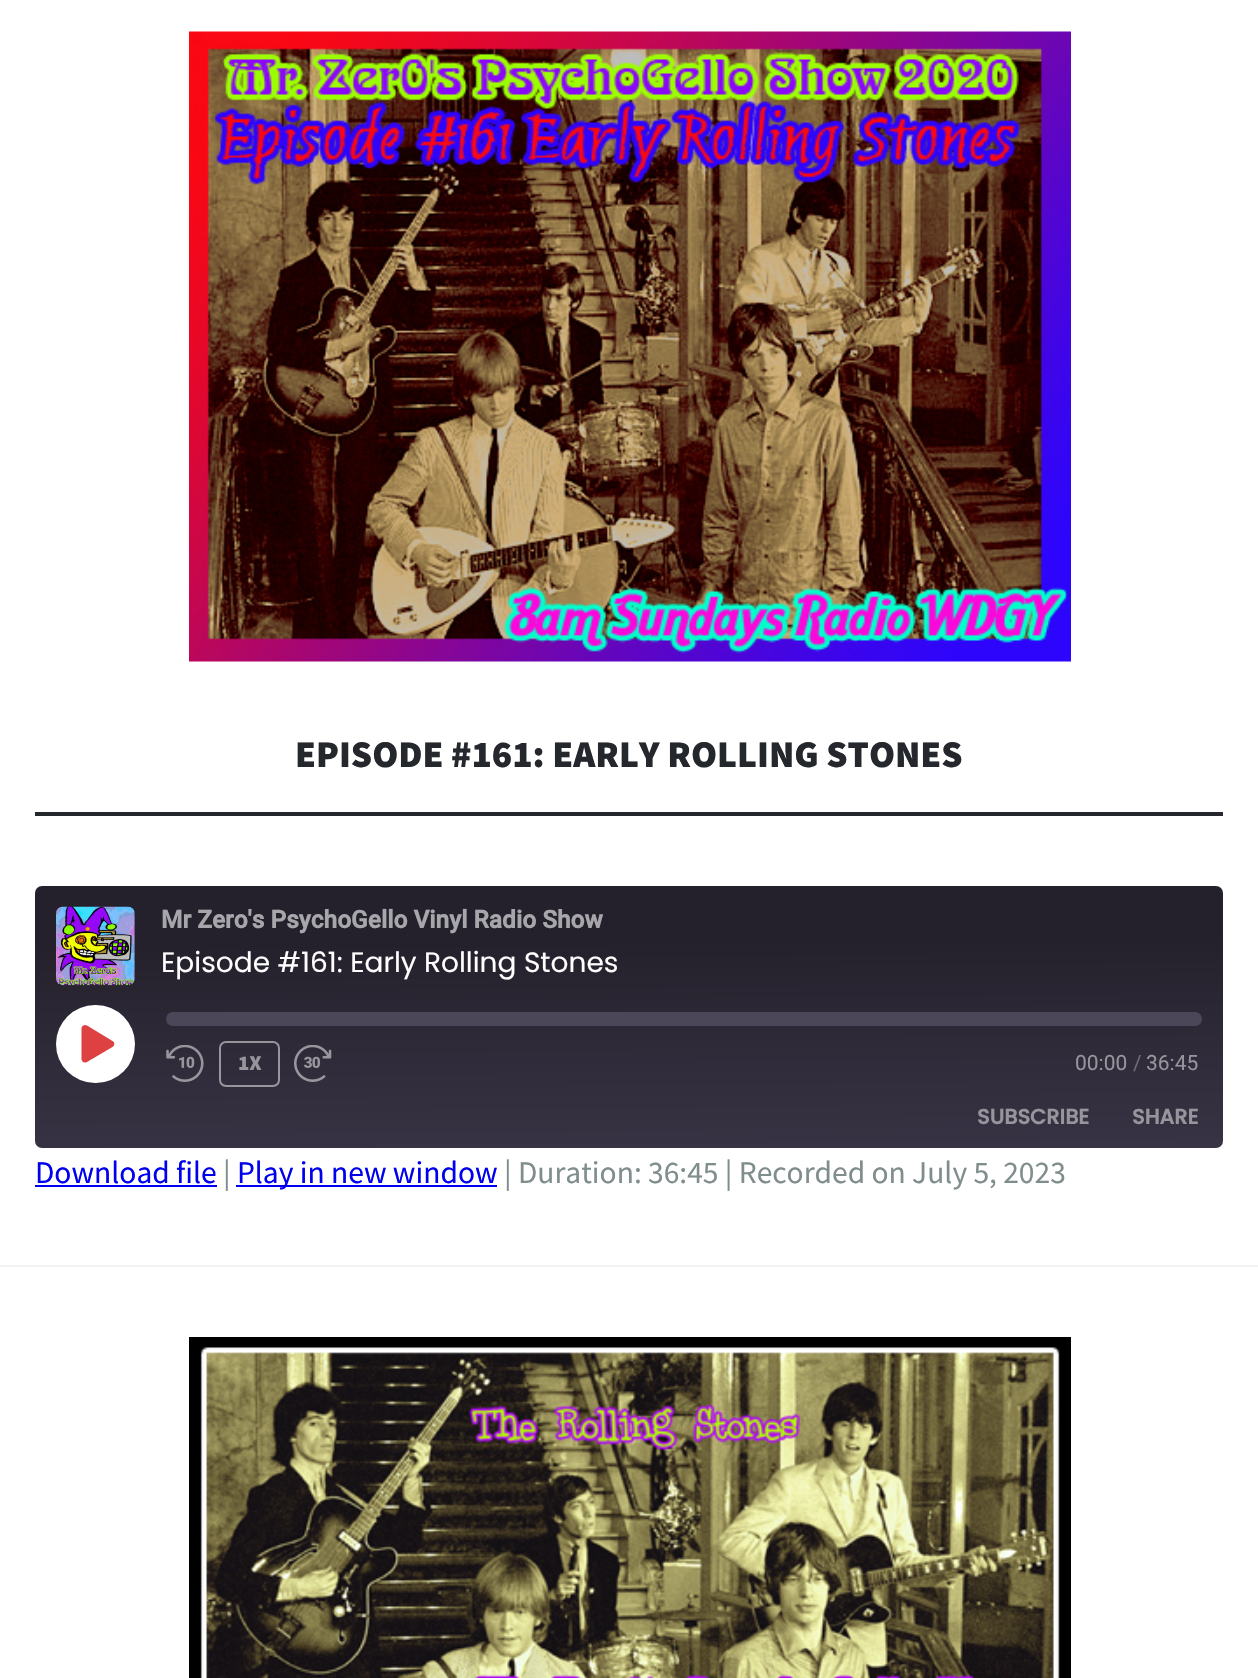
void draw(SkCanvas* canvas) {
	SkPaint fill;
	fill.setAntiAlias(true);
	auto makeFont = [&](const char* family, int weight, float size, bool italic = false) {
		SkFontStyle style(weight, SkFontStyle::kNormal_Width,
			italic ? SkFontStyle::kItalic_Slant : SkFontStyle::kUpright_Slant);
		SkFont result(fontMgr->matchFamilyStyle(family, style), size);
		result.setSubpixel(true);
		return result;
	};
	auto text = [&](const char* s, float x, float y, const SkFont& font) {
		canvas->drawString(s, x, y, font, fill);
	};
	auto box = [&](float l, float t, float r, float b) {
		canvas->drawRect(SkRect::MakeLTRB(l, t, r, b), fill);
	};
	auto roundBox = [&](float l, float t, float r, float b, float radius) {
		canvas->drawRoundRect(SkRect::MakeLTRB(l, t, r, b), radius, radius, fill);
	};
	auto picture = [&](const char* path, float l, float t, float r, float b) {
		auto image = SkImages::DeferredFromEncodedData(SkData::MakeFromFileName(path));
		canvas->drawImageRect(image, SkRect::MakeLTRB(l, t, r, b), SkSamplingOptions());
	};
	canvas->clear(0xFFFFFFFF);
	picture("image0.png", 189, 31, 1071, 662);
	fill.setColor(0xFF24282D);
	box(35, 812, 1223, 816);
	{
		const SkColor colors[] = {0xFF383344, 0xFF24212C};
		const float stops[] = {0.01f, 0.78f};
		const SkPoint ends[] = {{630, 1151}, {628, 882}};
		fill.setShader(SkGradientShader::MakeLinear(ends, colors, stops, 2, SkTileMode::kClamp));
		fill.setAlpha(255);
	}
	roundBox(35, 886, 1223, 1148, 7);
	picture("image1.png", 56, 906, 135, 986);
	fill.setShader(nullptr);
	fill.setColor(0xFFFFFFFF);
	roundBox(56, 1005, 135, 1083, 39);
	fill.setColor(0xFFDD4142);
	canvas->drawPath(SkPathBuilder().moveTo(112.5f, 1041).lineTo(87, 1025.5f).cubicTo(85, 1024, 81.5f, 1025.5f, 81.5f, 1028.5f).lineTo(81.5f, 1059).cubicTo(81.5f, 1062, 84.5f, 1063.5f, 87, 1062).lineTo(112.5f, 1047).cubicTo(115, 1045.5f, 115, 1042, 112.5f, 1041).close().detach(), fill);
	fill.setColor(0xFF4C4659);
	roundBox(166, 1012, 1202, 1026, 7);
	picture("image2.png", 166, 1045, 204, 1082);
	fill.setStyle(SkPaint::kStroke_Style);
	fill.setStrokeWidth(2);
	fill.setColor(0x80FFFFFF);
	canvas->drawRoundRect(SkRect::MakeLTRB(220, 1042, 279, 1086), 6, 6, fill);
	picture("image3.png", 294, 1045, 332, 1082);
	fill.setStyle(SkPaint::kFill_Style);
	fill.setColor(0xFF0000EE);
	box(35, 1185, 217, 1187);
	box(236, 1185, 497, 1187);
	fill.setColor(0xFFF1F2F3);
	box(0, 1265, 1258, 1267);
	picture("image4.png", 189, 1337, 1071, 1678);
	auto font1 = makeFont("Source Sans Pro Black", 900, 37.75f);
	fill.setColor(0xFF24282D);
	text("EPISODE #161: EARLY ROLLING STONES", 295, 767, font1);
	auto font2 = makeFont("Roboto", 700, 24.5f);
	fill.setColor(0xFFA7A6AB);
	text("Mr Zero's PsychoGello Vinyl Radio Show", 161, 928, font2);
	auto font3 = makeFont("Poppins", 400, 28);
	fill.setColor(0xFFFFFFFF);
	text("Episode #161: Early Rolling Stones", 161, 972, font3);
	auto font4 = makeFont("Source Sans Pro Black", 900, 21);
	fill.setColor(0xFF97959C);
	text("1X", 238, 1070, font4);
	auto font5 = makeFont("Roboto", 400, 21);
	text("00:00", 1075, 1070, font5);
	fill.setColor(0xFF6E6B76);
	text("/", 1133, 1070, font5);
	fill.setColor(0xFF97959C);
	text("36:45", 1146, 1070, font5);
	auto font6 = makeFont("Poppins", 700, 21);
	text("SUBSCRIBE", 977, 1124, font6);
	text("SHARE", 1132, 1124, font6);
	auto font7 = makeFont("Source Sans Pro", 400, 31.5f);
	fill.setColor(0xFF0000EE);
	text("Download file", 35, 1183, font7);
	fill.setColor(0xFF7F8D8C);
	text("|", 223, 1183, font7);
	fill.setColor(0xFF0000EE);
	text("Play in new window", 237, 1183, font7);
	fill.setColor(0xFF7F8D8C);
	text("| Duration: 36:45 | Recorded on July 5, 2023", 504, 1183, font7);
}
